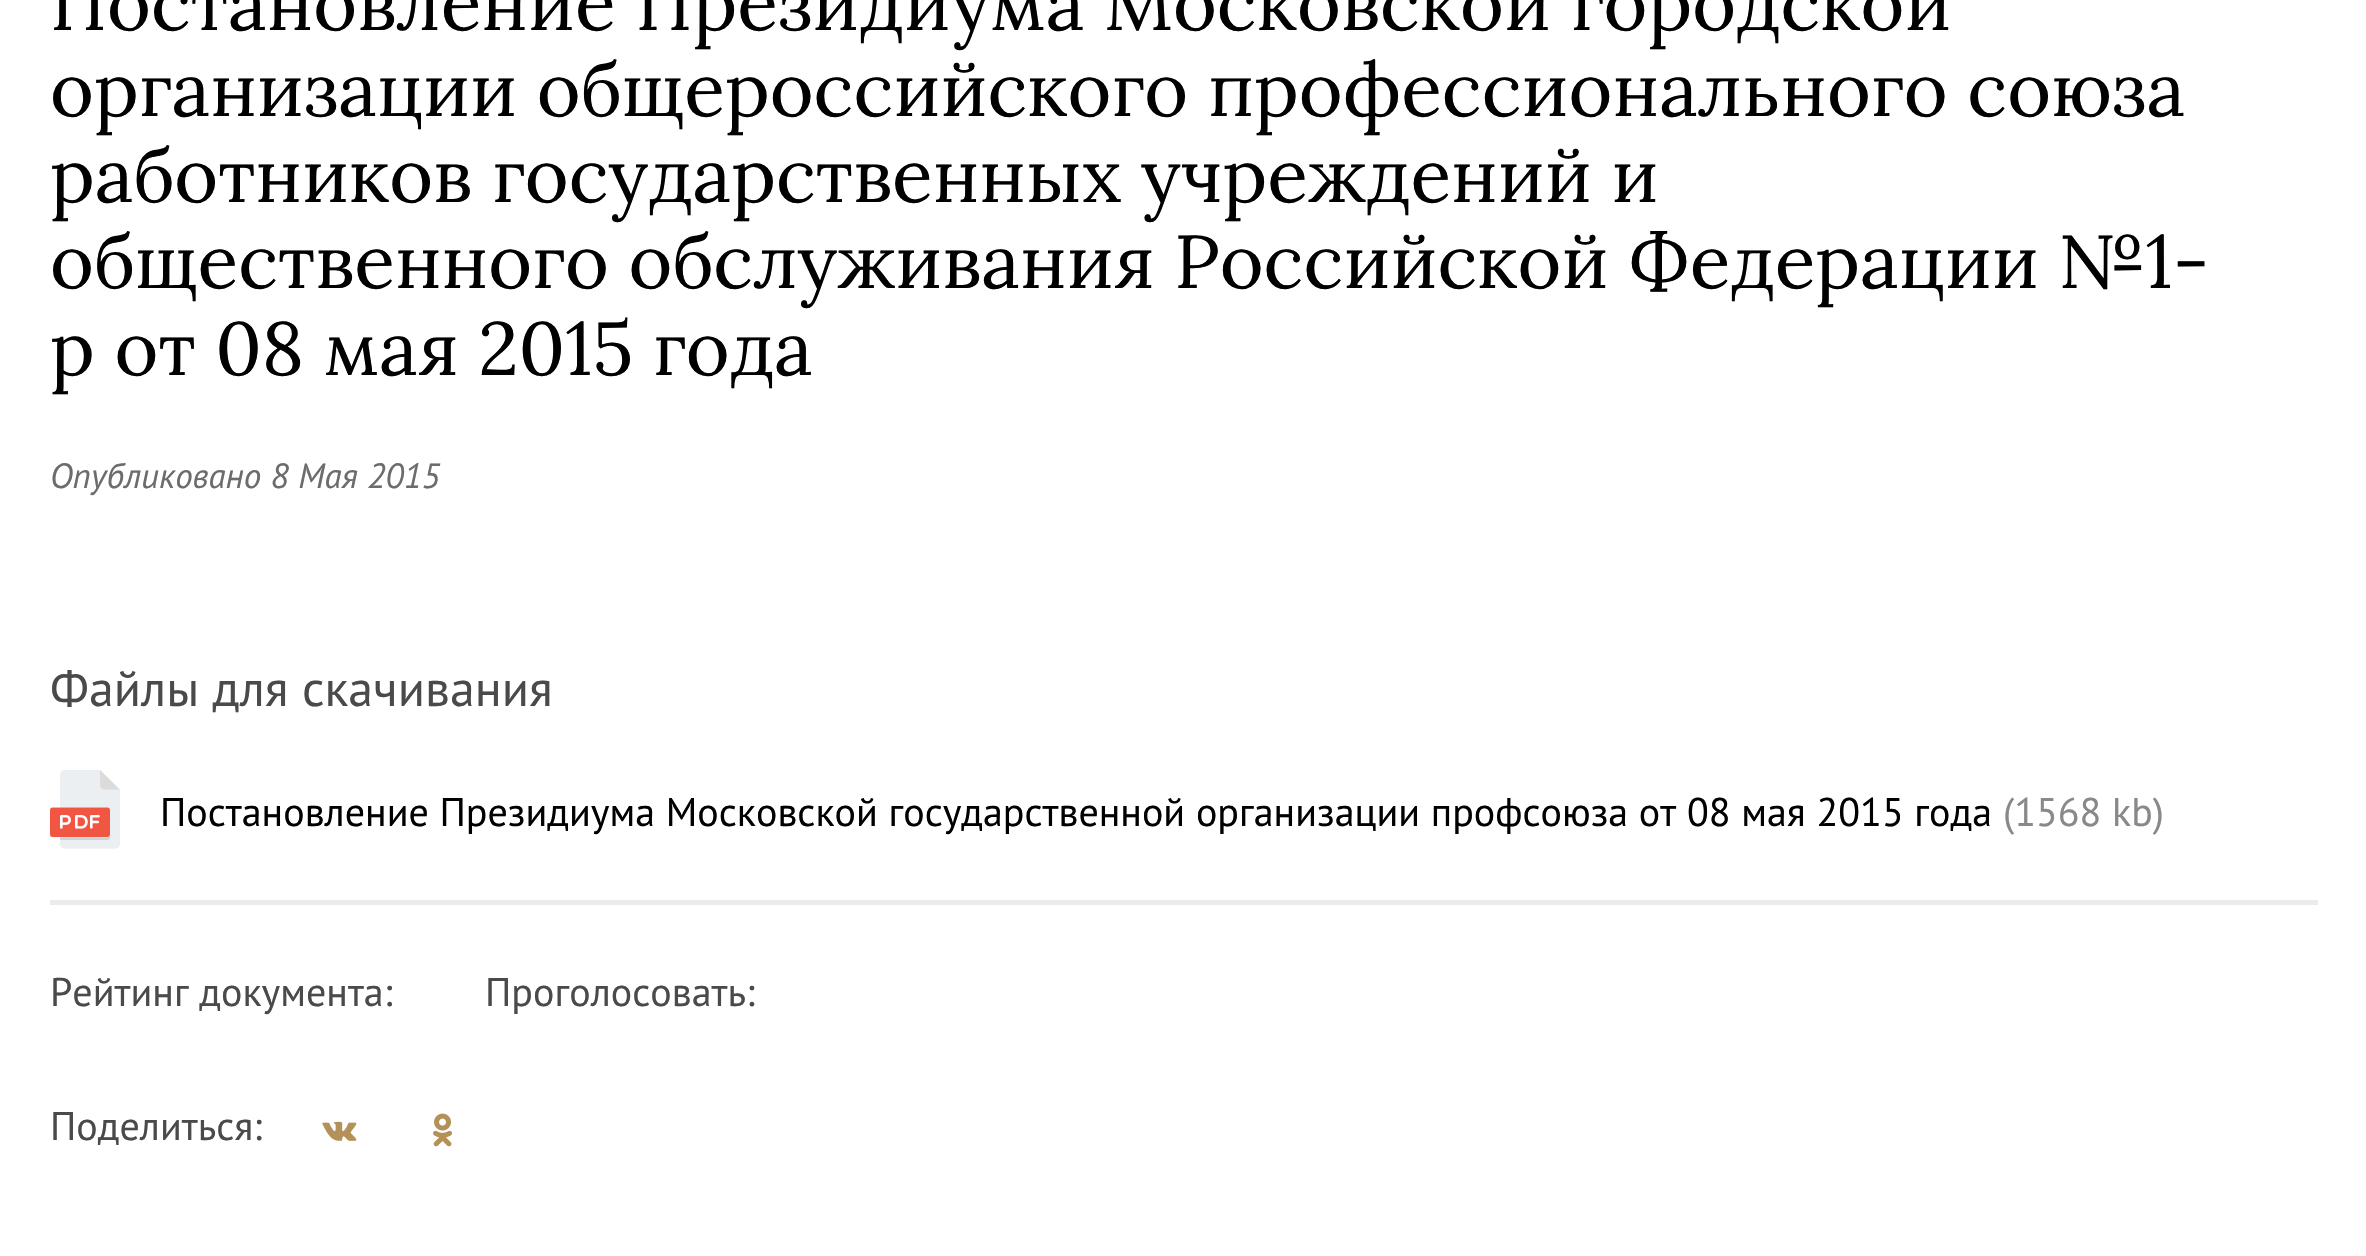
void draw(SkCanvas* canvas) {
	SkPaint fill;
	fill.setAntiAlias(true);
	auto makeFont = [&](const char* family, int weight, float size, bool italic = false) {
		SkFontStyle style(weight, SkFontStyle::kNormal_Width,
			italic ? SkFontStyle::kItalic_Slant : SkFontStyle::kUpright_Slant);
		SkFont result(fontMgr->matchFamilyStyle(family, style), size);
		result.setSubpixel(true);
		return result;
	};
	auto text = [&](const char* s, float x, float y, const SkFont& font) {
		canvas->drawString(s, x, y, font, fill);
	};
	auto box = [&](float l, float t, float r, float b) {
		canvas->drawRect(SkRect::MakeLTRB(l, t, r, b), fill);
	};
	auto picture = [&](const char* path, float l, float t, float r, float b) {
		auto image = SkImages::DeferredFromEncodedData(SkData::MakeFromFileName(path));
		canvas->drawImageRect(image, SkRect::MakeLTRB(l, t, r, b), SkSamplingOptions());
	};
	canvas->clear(0xFFFFFFFF);
	fill.setColor(0xFFEBEBEB);
	box(50, 900, 2318, 905);
	picture("image0.png", 50, 770, 120, 849);
	picture("image1.png", 322, 1121, 357, 1141);
	picture("image2.png", 433, 1113, 453, 1147);
	auto font1 = makeFont("Lora", 400, 75);
	fill.setColor(0xFF000000);
	text("Постановление Президиума Московской городской", 50, 30, font1);
	text("организации общероссийского профессионального союза", 50, 116, font1);
	text("работников государственных учреждений и", 50, 202, font1);
	text("общественного обслуживания Российской Федерации №1-", 50, 288, font1);
	text("р от 08 мая 2015 года", 50, 375, font1);
	auto font2 = makeFont("PT Sans", 400, 35, true);
	fill.setColor(0xFF6C6C6C);
	text("Опубликовано 8 Мая 2015", 50, 488, font2);
	auto font3 = makeFont("PT Sans", 400, 50);
	fill.setColor(0xFF4A4A4A);
	text("Файлы для скачивания", 50, 706, font3);
	auto font4 = makeFont("PT Sans", 400, 40);
	fill.setColor(0xFF000000);
	text("Постановление Президиума Московской государственной организации профсоюза от 08 мая 2015 года", 160, 826, font4);
	fill.setColor(0xFF898989);
	text("(1568 kb)", 2003, 826, font4);
	fill.setColor(0xFF4A4A4A);
	text("Рейтинг документа:", 50, 1006, font4);
	text("Проголосовать:", 485, 1006, font4);
	text("Поделиться:", 50, 1140, font4);
}
